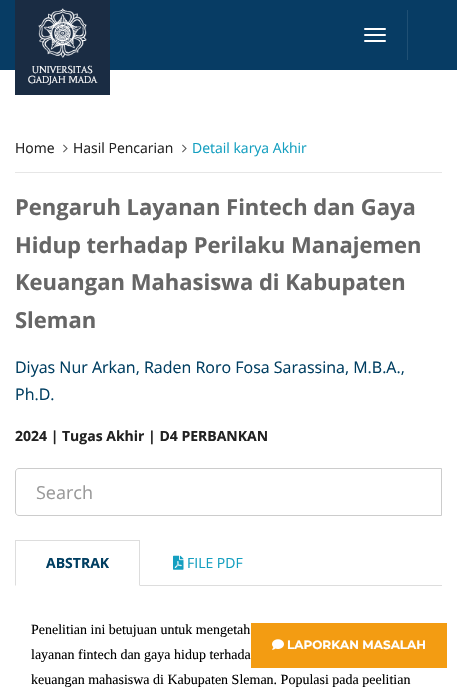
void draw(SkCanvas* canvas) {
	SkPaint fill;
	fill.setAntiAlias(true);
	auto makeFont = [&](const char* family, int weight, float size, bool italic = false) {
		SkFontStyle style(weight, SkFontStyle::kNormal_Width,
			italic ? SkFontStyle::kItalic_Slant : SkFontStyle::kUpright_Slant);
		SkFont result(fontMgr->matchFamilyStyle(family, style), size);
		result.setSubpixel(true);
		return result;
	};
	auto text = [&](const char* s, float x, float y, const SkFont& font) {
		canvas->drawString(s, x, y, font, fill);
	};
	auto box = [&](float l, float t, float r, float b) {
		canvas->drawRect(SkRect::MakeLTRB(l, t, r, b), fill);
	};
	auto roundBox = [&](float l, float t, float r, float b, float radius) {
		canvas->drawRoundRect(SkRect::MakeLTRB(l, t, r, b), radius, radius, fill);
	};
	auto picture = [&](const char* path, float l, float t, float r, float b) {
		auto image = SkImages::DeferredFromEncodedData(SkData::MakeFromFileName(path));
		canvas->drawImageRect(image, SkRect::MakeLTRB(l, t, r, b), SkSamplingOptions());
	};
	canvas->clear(0xFFFFFFFF);
	fill.setColor(0xFF073C64);
	box(0, 0, 457, 70);
	fill.setColor(0xFF205074);
	box(407, 10, 408, 60);
	fill.setColor(0xFFFFFFFF);
	roundBox(364, 28, 386, 30, 1);
	roundBox(364, 34, 386, 36, 1);
	roundBox(364, 40, 386, 42, 1);
	fill.setColor(0xFF1A2C43);
	box(15, 0, 110, 95);
	picture("image0.png", 38, 8, 87, 58);
	fill.setColor(0xFFE6E6E6);
	box(15, 172, 442, 173);
	picture("image1.png", 63, 144, 68, 153);
	picture("image1.png", 182, 144, 187, 153);
	fill.setStyle(SkPaint::kStroke_Style);
	fill.setStrokeWidth(1);
	fill.setColor(0xFFCCCCCC);
	canvas->drawPath(SkPathBuilder().moveTo(19, 468.5f).lineTo(441.5f, 468.5f).lineTo(441.5f, 515.5f).lineTo(19, 515.5f).cubicTo(17, 515.5f, 15.5f, 514, 15.5f, 512).lineTo(15.5f, 472).cubicTo(15.5f, 470, 17, 468.5f, 19, 468.5f).close().detach(), fill);
	fill.setStyle(SkPaint::kFill_Style);
	fill.setColor(0xFFDDDDDD);
	box(140, 585, 442, 586);
	box(15, 540, 140, 541);
	canvas->drawPath(SkPathBuilder().moveTo(140, 540).lineTo(140, 586).lineTo(139, 585).lineTo(139, 541).close().detach(), fill);
	canvas->drawPath(SkPathBuilder().moveTo(15, 586).lineTo(15, 540).lineTo(16, 541).lineTo(16, 585).close().detach(), fill);
	picture("image2.png", 173, 555, 184, 570);
	fill.setColor(0xFFF39C12);
	box(251, 623, 447, 668);
	picture("image3.png", 272, 639, 284, 650);
	auto font1 = makeFont("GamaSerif", 400, 10);
	fill.setColor(0xFFFFFFFF);
	text("UNIVERSITAS", 32, 73, font1);
	text("GADJAH MADA", 28, 83, font1);
	auto font2 = makeFont("Open Sans", 400, 14);
	fill.setColor(0xFF222222);
	text("Home", 15, 153, font2);
	text("Hasil Pencarian", 73, 153, font2);
	fill.setColor(0xFF149FC0);
	text("Detail karya Akhir", 192, 153, font2);
	auto font3 = makeFont("Open Sans", 700, 22);
	fill.setColor(0xFF666666);
	text("Pengaruh Layanan Fintech dan Gaya", 15, 215, font3);
	text("Hidup terhadap Perilaku Manajemen", 15, 253, font3);
	text("Keuangan Mahasiswa di Kabupaten", 15, 290, font3);
	text("Sleman", 15, 328, font3);
	auto font4 = makeFont("Open Sans", 400, 16);
	fill.setColor(0xFF003E61);
	text("Diyas Nur Arkan, Raden Roro Fosa Sarassina, M.B.A.,", 15, 373, font4);
	text("Ph.D.", 15, 400, font4);
	auto font5 = makeFont("Open Sans", 700, 14);
	fill.setColor(0xFF222222);
	text("2024 | Tugas Akhir | D4 PERBANKAN", 15, 441, font5);
	auto font6 = makeFont("Open Sans", 400, 18);
	fill.setColor(0xFF999999);
	text("Search", 36, 499, font6);
	fill.setColor(0xFF003E61);
	text("ABSTRAK", 46, 568, font5);
	fill.setColor(0xFF149FC0);
	text("FILE PDF", 187, 568, font2);
	auto font7 = makeFont("Liberation Serif", 400, 14);
	fill.setColor(0xFF000000);
	text("Penelitian ini betujuan untuk mengetah", 31, 634, font7);
	text("layanan fintech dan gaya hidup terhada", 31, 659, font7);
	text("keuangan mahasiswa di Kabupaten Sleman. Populasi pada peelitian", 31, 684, font7);
	auto font8 = makeFont("Montserrat", 700, 12);
	fill.setColor(0xFFFFFFFF);
	text("LAPORKAN MASALAH", 287, 649, font8);
}
